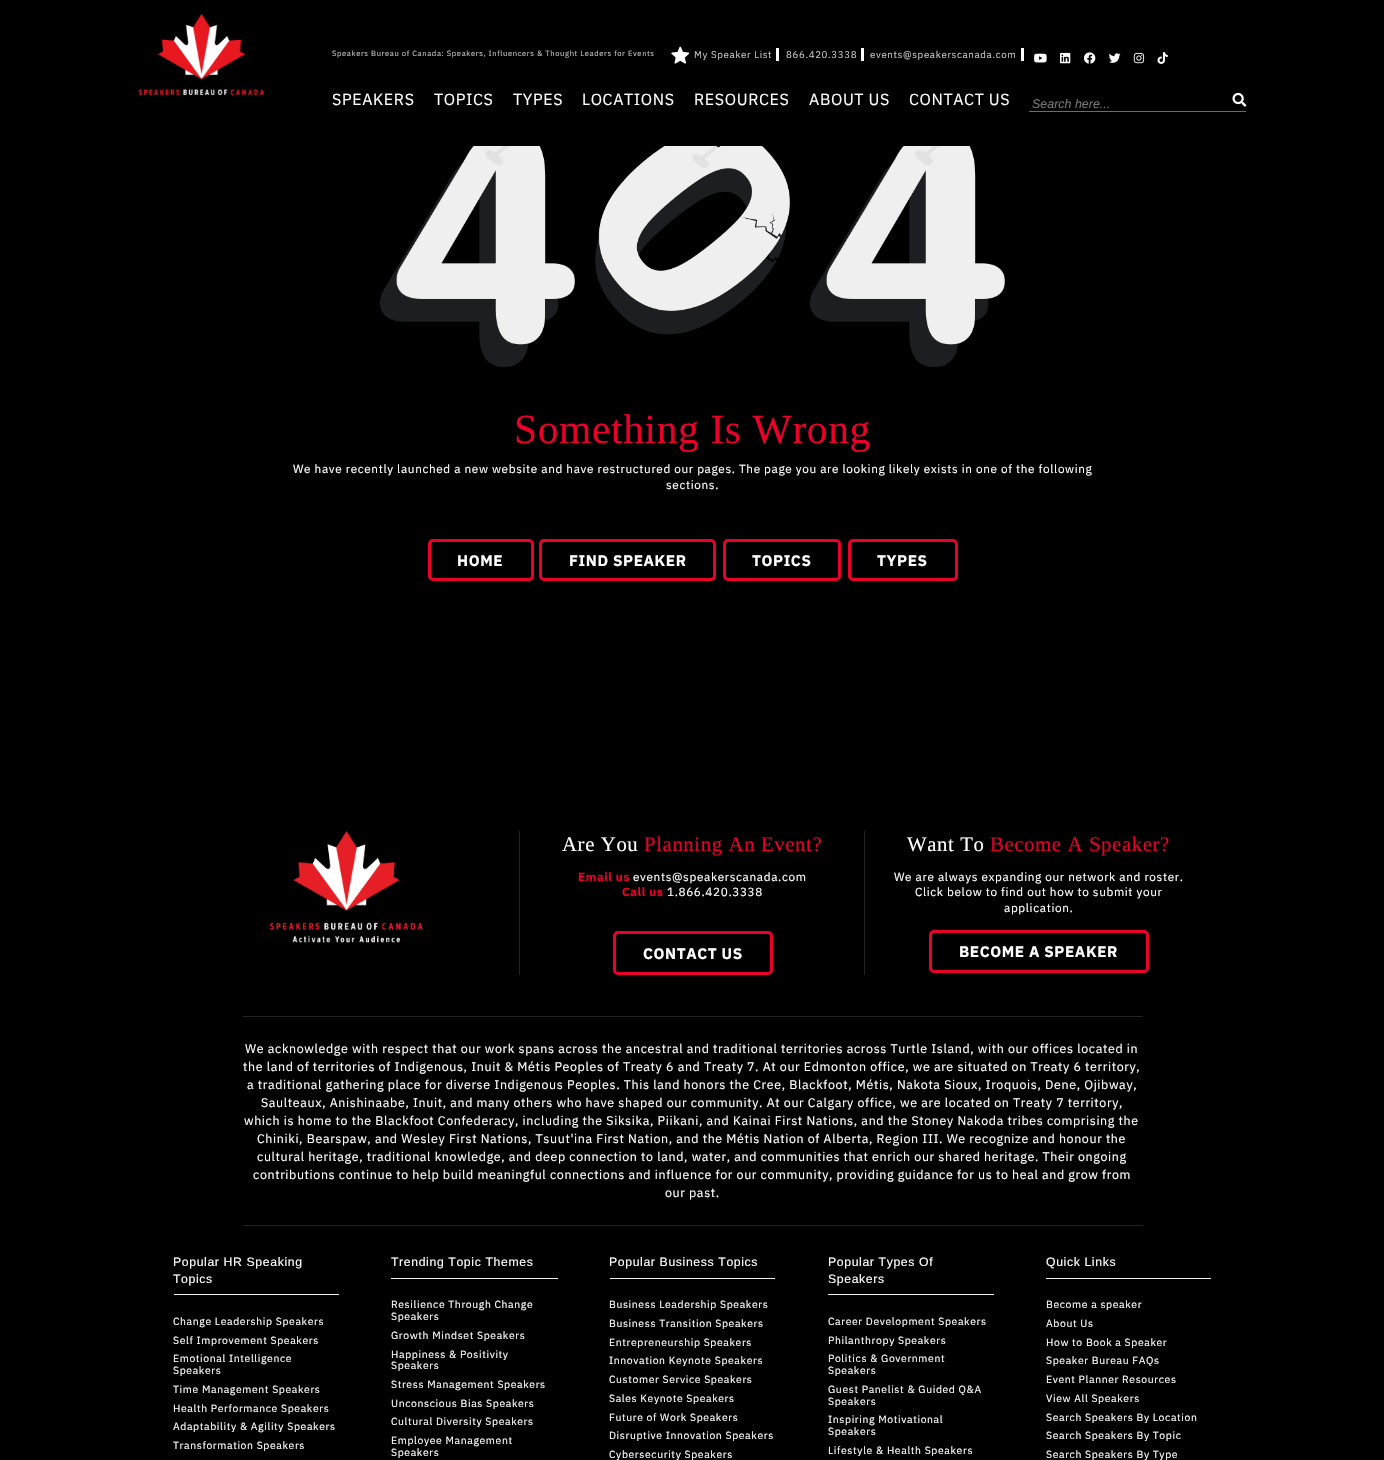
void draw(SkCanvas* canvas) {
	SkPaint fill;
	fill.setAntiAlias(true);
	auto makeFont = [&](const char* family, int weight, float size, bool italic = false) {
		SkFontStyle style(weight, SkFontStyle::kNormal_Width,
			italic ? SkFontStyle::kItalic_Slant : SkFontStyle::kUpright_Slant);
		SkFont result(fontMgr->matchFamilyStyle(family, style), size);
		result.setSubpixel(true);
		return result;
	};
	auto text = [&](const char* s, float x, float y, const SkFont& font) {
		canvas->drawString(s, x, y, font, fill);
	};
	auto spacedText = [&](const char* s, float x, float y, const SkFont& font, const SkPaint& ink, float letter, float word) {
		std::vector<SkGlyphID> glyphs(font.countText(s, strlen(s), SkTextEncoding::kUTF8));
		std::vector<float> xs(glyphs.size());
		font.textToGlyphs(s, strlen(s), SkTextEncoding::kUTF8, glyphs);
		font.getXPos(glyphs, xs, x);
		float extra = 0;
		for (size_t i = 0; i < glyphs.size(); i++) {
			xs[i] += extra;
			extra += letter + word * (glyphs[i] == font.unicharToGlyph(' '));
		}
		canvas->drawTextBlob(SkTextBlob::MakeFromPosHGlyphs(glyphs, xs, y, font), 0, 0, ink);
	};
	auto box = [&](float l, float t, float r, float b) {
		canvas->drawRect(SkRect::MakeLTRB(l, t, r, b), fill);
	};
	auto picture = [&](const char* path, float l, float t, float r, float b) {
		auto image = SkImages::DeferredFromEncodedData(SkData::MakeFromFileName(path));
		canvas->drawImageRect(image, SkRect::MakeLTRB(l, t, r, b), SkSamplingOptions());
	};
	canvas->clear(0xFF000000);
	picture("image0.png", 138, 13, 264, 96);
	picture("image1.png", 671, 46, 689, 64);
	fill.setColor(0xFFFFFFFF);
	box(776, 48, 779, 61);
	box(861, 48, 864, 61);
	box(1021, 48, 1024, 61);
	picture("image2.png", 1034, 53, 1047, 63);
	picture("image3.png", 1060, 52, 1071, 64);
	picture("image4.png", 1083, 52, 1096, 64);
	picture("image5.png", 1109, 53, 1121, 63);
	picture("image6.png", 1133, 52, 1145, 64);
	picture("image7.png", 1157, 52, 1168, 64);
	fill.setColor(0xFF716A6A);
	box(1029, 111, 1246, 112);
	picture("image8.png", 1232, 92, 1247, 107);
	picture("image9.png", 380, 146, 575, 367);
	picture("image10.png", 595, 146, 790, 335);
	picture("image9.png", 810, 146, 1005, 367);
	fill.setStyle(SkPaint::kStroke_Style);
	fill.setStrokeWidth(3);
	fill.setColor(0xFFEA0029);
	canvas->drawRoundRect(SkRect::MakeLTRB(429.5f, 540.5f, 532.5f, 579.5f), 3.5f, 3.5f, fill);
	canvas->drawRoundRect(SkRect::MakeLTRB(540.5f, 540.5f, 714.5f, 579.5f), 3.5f, 3.5f, fill);
	canvas->drawRoundRect(SkRect::MakeLTRB(724.5f, 540.5f, 839.5f, 579.5f), 3.5f, 3.5f, fill);
	canvas->drawRoundRect(SkRect::MakeLTRB(849.5f, 540.5f, 956.5f, 579.5f), 3.5f, 3.5f, fill);
	picture("image11.png", 270, 831, 423, 943);
	fill.setStyle(SkPaint::kFill_Style);
	fill.setColor(0xFF222222);
	box(864, 831, 865, 975);
	box(519, 831, 520, 975);
	fill.setStyle(SkPaint::kStroke_Style);
	fill.setColor(0xFFEA0029);
	canvas->drawRoundRect(SkRect::MakeLTRB(614.5f, 932.5f, 771.5f, 973.5f), 3.5f, 3.5f, fill);
	canvas->drawRoundRect(SkRect::MakeLTRB(930.5f, 931.5f, 1147.5f, 971.5f), 3.5f, 3.5f, fill);
	fill.setStyle(SkPaint::kFill_Style);
	fill.setColor(0xFF222222);
	box(243, 1016, 1143, 1017);
	box(243, 1225, 1143, 1226);
	fill.setColor(0xFFEFEFEF);
	box(174, 1294, 339, 1295);
	box(391, 1278, 558, 1279);
	box(610, 1278, 775, 1279);
	box(828, 1294, 994, 1295);
	box(1046, 1278, 1211, 1279);
	auto font1 = makeFont("IBM Plex Sans", 400, 7.6f);
	fill.setColor(0xFFC3C3C3);
	spacedText("Speakers Bureau of Canada: Speakers, Influencers & Thought Leaders for Events", 332, 56, font1, fill, 0.62f, 0);
	auto font2 = makeFont("IBM Plex Sans", 400, 9.75f);
	spacedText("My Speaker List", 694, 58, font2, fill, 0.62f, 0);
	spacedText("866.420.3338", 786, 58, font2, fill, 0.62f, 0);
	spacedText("events@speakerscanada.com", 870, 58, font2, fill, 0.62f, 0);
	auto font3 = makeFont("IBM Plex Sans", 400, 16);
	fill.setColor(0xFFFFFFFF);
	spacedText("SPEAKERS", 332, 105, font3, fill, 0.62f, 0);
	spacedText("TOPICS", 434, 105, font3, fill, 0.62f, 0);
	spacedText("TYPES", 513, 105, font3, fill, 0.62f, 0);
	spacedText("LOCATIONS", 582, 105, font3, fill, 0.62f, 0);
	spacedText("RESOURCES", 694, 105, font3, fill, 0.62f, 0);
	spacedText("ABOUT US", 809, 105, font3, fill, 0.62f, 0);
	spacedText("CONTACT US", 909, 105, font3, fill, 0.62f, 0);
	auto font4 = makeFont("Liberation Sans", 400, 12.45f, true);
	fill.setColor(0xFF757575);
	text("Search here...", 1032, 108, font4);
	auto font5 = makeFont("Liberation Serif", 400, 41.5f);
	fill.setColor(0xFFEA0029);
	spacedText("Something Is Wrong", 514, 443, font5, fill, 0.62f, 0);
	auto font6 = makeFont("IBM Plex Sans", 400, 11.77f);
	fill.setColor(0xFFFFFFFF);
	spacedText("We have recently launched a new website and have restructured our pages. The page you are looking likely exists in one of the following", 293, 473, font6, fill, 0.62f, 0);
	spacedText("sections.", 666, 489, font6, fill, 0.62f, 0);
	auto font7 = makeFont("IBM Plex Sans", 700, 15.25f);
	spacedText("HOME", 457, 566, font7, fill, 0.62f, 0);
	spacedText("FIND SPEAKER", 569, 566, font7, fill, 0.62f, 0);
	spacedText("TOPICS", 752, 566, font7, fill, 0.62f, 0);
	spacedText("TYPES", 877, 566, font7, fill, 0.62f, 0);
	auto font8 = makeFont("Liberation Serif", 400, 20.75f);
	spacedText("Are You", 562, 851, font8, fill, 0.62f, 0);
	fill.setColor(0xFFEA0029);
	spacedText("Planning An Event?", 644, 851, font8, fill, 0.62f, 0);
	auto font9 = makeFont("IBM Plex Sans", 700, 11.77f);
	spacedText("Email us", 578, 881, font9, fill, 0.62f, 0);
	fill.setColor(0xFFFFFFFF);
	spacedText("events@speakerscanada.com", 633, 881, font6, fill, 0.62f, 0);
	fill.setColor(0xFFEA0029);
	spacedText("Call us", 622, 896, font9, fill, 0.62f, 0);
	fill.setColor(0xFFFFFFFF);
	spacedText("1.866.420.3338", 667, 896, font6, fill, 0.62f, 0);
	spacedText("CONTACT US", 643, 959, font7, fill, 0.62f, 0);
	spacedText("Want To", 907, 851, font8, fill, 0.62f, 0);
	fill.setColor(0xFFEA0029);
	spacedText("Become A Speaker?", 990, 851, font8, fill, 0.62f, 0);
	fill.setColor(0xFFFFFFFF);
	spacedText("We are always expanding our network and roster.", 894, 881, font6, fill, 0.62f, 0);
	spacedText("Click below to find out how to submit your", 915, 896, font6, fill, 0.62f, 0);
	spacedText("application.", 1004, 912, font6, fill, 0.62f, 0);
	spacedText("BECOME A SPEAKER", 959, 957, font7, fill, 0.62f, 0);
	auto font10 = makeFont("IBM Plex Sans", 400, 12.45f);
	spacedText("We acknowledge with respect that our work spans across the ancestral and traditional territories across Turtle Island, with our offices located in", 245, 1053, font10, fill, 0.62f, 0);
	spacedText("the land of territories of Indigenous, Inuit & Métis Peoples of Treaty 6 and Treaty 7. At our Edmonton office, we are situated on Treaty 6 territory,", 243, 1071, font10, fill, 0.62f, 0);
	spacedText("a traditional gathering place for diverse Indigenous Peoples. This land honors the Cree, Blackfoot, Métis, Nakota Sioux, Iroquois, Dene, Ojibway,", 247, 1089, font10, fill, 0.62f, 0);
	spacedText("Saulteaux, Anishinaabe, Inuit, and many others who have shaped our community. At our Calgary office, we are located on Treaty 7 territory,", 261, 1107, font10, fill, 0.62f, 0);
	spacedText("which is home to the Blackfoot Confederacy, including the Siksika, Piikani, and Kainai First Nations, and the Stoney Nakoda tribes comprising the", 244, 1125, font10, fill, 0.62f, 0);
	spacedText("Chiniki, Bearspaw, and Wesley First Nations, Tsuut'ina First Nation, and the Métis Nation of Alberta, Region III. We recognize and honour the", 257, 1143, font10, fill, 0.62f, 0);
	spacedText("cultural heritage, traditional knowledge, and deep connection to land, water, and communities that enrich our shared heritage. Their ongoing", 257, 1161, font10, fill, 0.62f, 0);
	spacedText("contributions continue to help build meaningful connections and influence for our community, providing guidance for us to heal and grow from", 253, 1179, font10, fill, 0.62f, 0);
	spacedText("our past.", 665, 1197, font10, fill, 0.62f, 0);
	auto font11 = makeFont("Liberation Sans", 400, 12.25f);
	spacedText("Popular HR Speaking", 173, 1266, font11, fill, 0.62f, 0);
	spacedText("Topics", 173, 1283, font11, fill, 0.62f, 0);
	auto font12 = makeFont("IBM Plex Sans", 400, 10.4f);
	spacedText("Change Leadership Speakers", 173, 1325, font12, fill, 0.62f, 0);
	spacedText("Self Improvement Speakers", 173, 1344, font12, fill, 0.62f, 0);
	spacedText("Emotional Intelligence", 173, 1362, font12, fill, 0.62f, 0);
	spacedText("Speakers", 173, 1374, font12, fill, 0.62f, 0);
	spacedText("Time Management Speakers", 173, 1393, font12, fill, 0.62f, 0);
	spacedText("Health Performance Speakers", 173, 1412, font12, fill, 0.62f, 0);
	spacedText("Adaptability & Agility Speakers", 173, 1430, font12, fill, 0.62f, 0);
	spacedText("Transformation Speakers", 173, 1449, font12, fill, 0.62f, 0);
	spacedText("Trending Topic Themes", 391, 1266, font11, fill, 0.62f, 0);
	spacedText("Resilience Through Change", 391, 1308, font12, fill, 0.62f, 0);
	spacedText("Speakers", 391, 1320, font12, fill, 0.62f, 0);
	spacedText("Growth Mindset Speakers", 391, 1339, font12, fill, 0.62f, 0);
	spacedText("Happiness & Positivity", 391, 1358, font12, fill, 0.62f, 0);
	spacedText("Speakers", 391, 1369, font12, fill, 0.62f, 0);
	spacedText("Stress Management Speakers", 391, 1388, font12, fill, 0.62f, 0);
	spacedText("Unconscious Bias Speakers", 391, 1407, font12, fill, 0.62f, 0);
	spacedText("Cultural Diversity Speakers", 391, 1425, font12, fill, 0.62f, 0);
	spacedText("Employee Management", 391, 1444, font12, fill, 0.62f, 0);
	spacedText("Speakers", 391, 1456, font12, fill, 0.62f, 0);
	spacedText("Popular Business Topics", 609, 1266, font11, fill, 0.62f, 0);
	spacedText("Business Leadership Speakers", 609, 1308, font12, fill, 0.62f, 0);
	spacedText("Business Transition Speakers", 609, 1327, font12, fill, 0.62f, 0);
	spacedText("Entrepreneurship Speakers", 609, 1346, font12, fill, 0.62f, 0);
	spacedText("Innovation Keynote Speakers", 609, 1364, font12, fill, 0.62f, 0);
	spacedText("Customer Service Speakers", 609, 1383, font12, fill, 0.62f, 0);
	spacedText("Sales Keynote Speakers", 609, 1402, font12, fill, 0.62f, 0);
	spacedText("Future of Work Speakers", 609, 1421, font12, fill, 0.62f, 0);
	spacedText("Disruptive Innovation Speakers", 609, 1439, font12, fill, 0.62f, 0);
	spacedText("Cybersecurity Speakers", 609, 1458, font12, fill, 0.62f, 0);
	spacedText("Popular Types Of", 828, 1266, font11, fill, 0.62f, 0);
	spacedText("Speakers", 828, 1283, font11, fill, 0.62f, 0);
	spacedText("Career Development Speakers", 828, 1325, font12, fill, 0.62f, 0);
	spacedText("Philanthropy Speakers", 828, 1344, font12, fill, 0.62f, 0);
	spacedText("Politics & Government", 828, 1362, font12, fill, 0.62f, 0);
	spacedText("Speakers", 828, 1374, font12, fill, 0.62f, 0);
	spacedText("Guest Panelist & Guided Q&A", 828, 1393, font12, fill, 0.62f, 0);
	spacedText("Speakers", 828, 1405, font12, fill, 0.62f, 0);
	spacedText("Inspiring Motivational", 828, 1423, font12, fill, 0.62f, 0);
	spacedText("Speakers", 828, 1435, font12, fill, 0.62f, 0);
	spacedText("Lifestyle & Health Speakers", 828, 1454, font12, fill, 0.62f, 0);
	spacedText("Quick Links", 1046, 1266, font11, fill, 0.62f, 0);
	spacedText("Become a speaker", 1046, 1308, font12, fill, 0.62f, 0);
	spacedText("About Us", 1046, 1327, font12, fill, 0.62f, 0);
	spacedText("How to Book a Speaker", 1046, 1346, font12, fill, 0.62f, 0);
	spacedText("Speaker Bureau FAQs", 1046, 1364, font12, fill, 0.62f, 0);
	spacedText("Event Planner Resources", 1046, 1383, font12, fill, 0.62f, 0);
	spacedText("View All Speakers", 1046, 1402, font12, fill, 0.62f, 0);
	spacedText("Search Speakers By Location", 1046, 1421, font12, fill, 0.62f, 0);
	spacedText("Search Speakers By Topic", 1046, 1439, font12, fill, 0.62f, 0);
	spacedText("Search Speakers By Type", 1046, 1458, font12, fill, 0.62f, 0);
}
